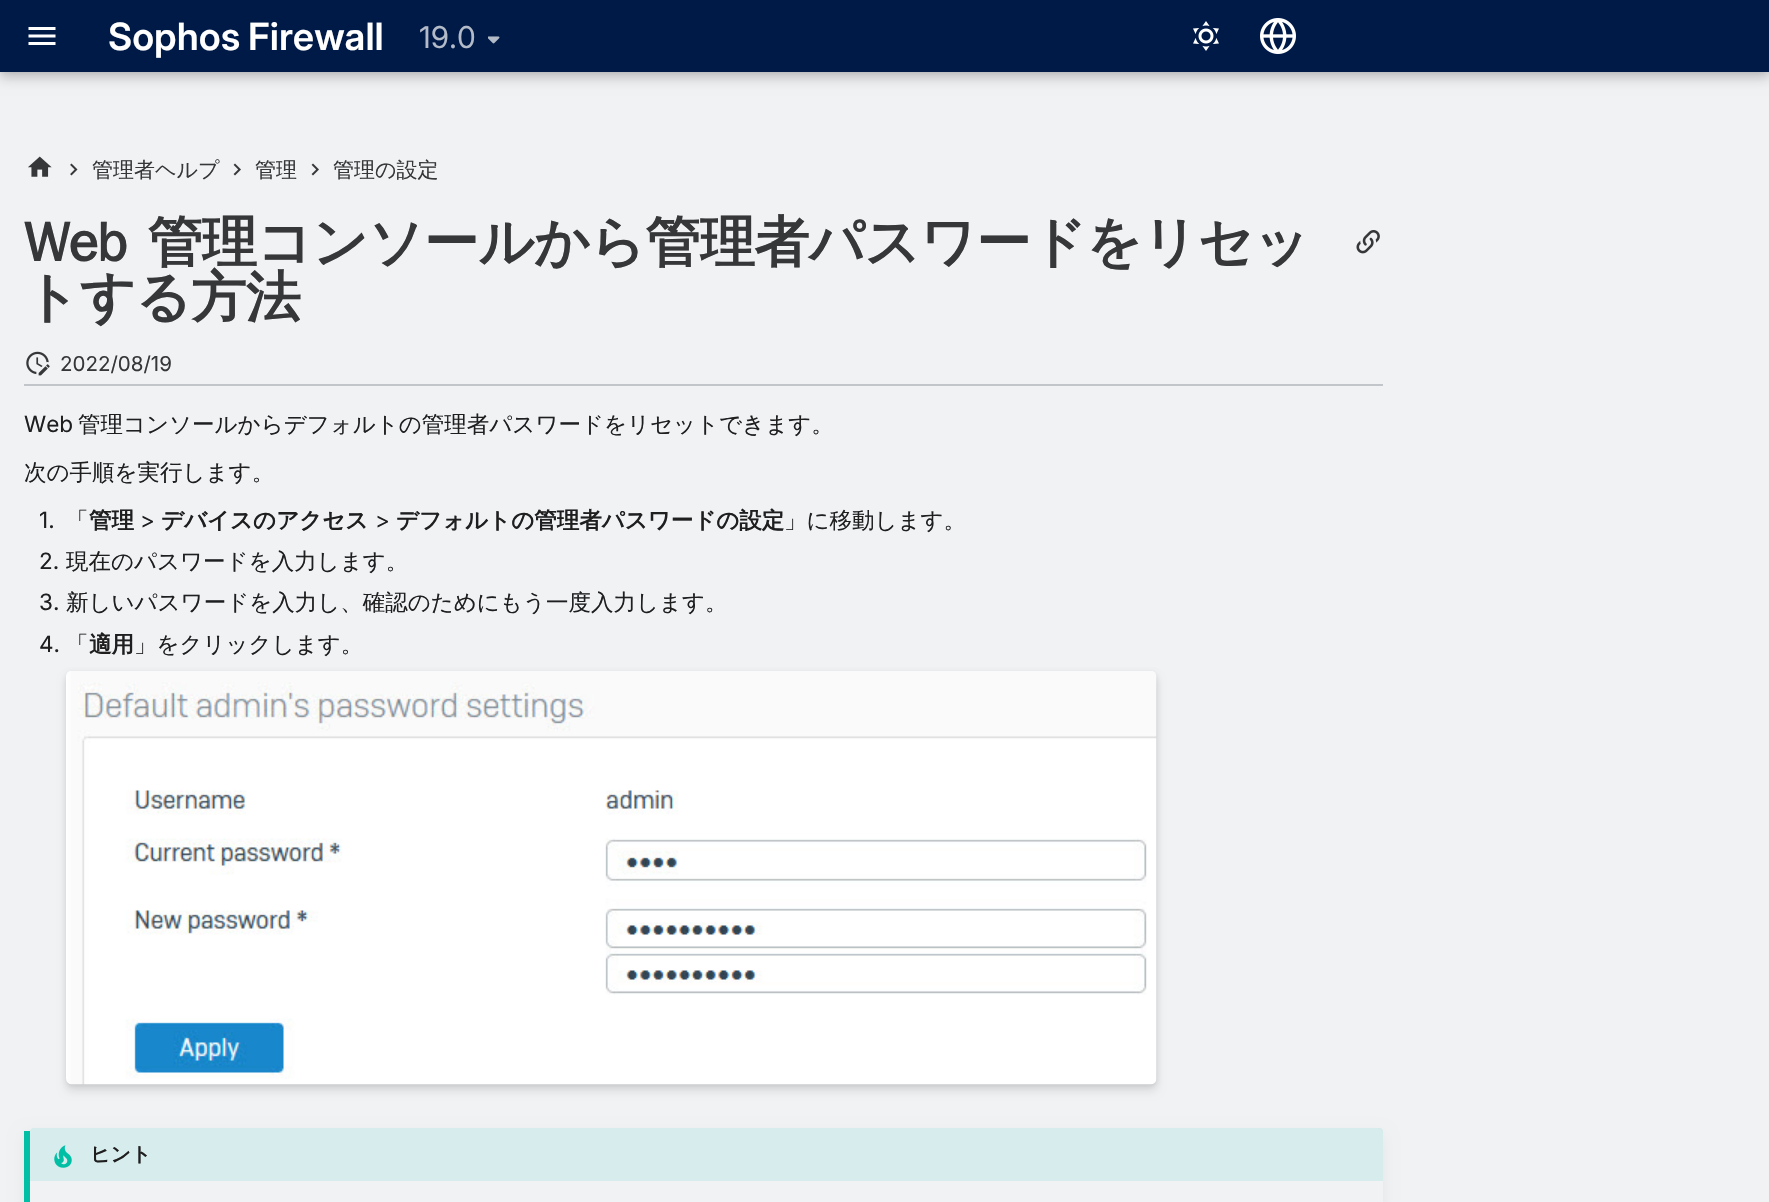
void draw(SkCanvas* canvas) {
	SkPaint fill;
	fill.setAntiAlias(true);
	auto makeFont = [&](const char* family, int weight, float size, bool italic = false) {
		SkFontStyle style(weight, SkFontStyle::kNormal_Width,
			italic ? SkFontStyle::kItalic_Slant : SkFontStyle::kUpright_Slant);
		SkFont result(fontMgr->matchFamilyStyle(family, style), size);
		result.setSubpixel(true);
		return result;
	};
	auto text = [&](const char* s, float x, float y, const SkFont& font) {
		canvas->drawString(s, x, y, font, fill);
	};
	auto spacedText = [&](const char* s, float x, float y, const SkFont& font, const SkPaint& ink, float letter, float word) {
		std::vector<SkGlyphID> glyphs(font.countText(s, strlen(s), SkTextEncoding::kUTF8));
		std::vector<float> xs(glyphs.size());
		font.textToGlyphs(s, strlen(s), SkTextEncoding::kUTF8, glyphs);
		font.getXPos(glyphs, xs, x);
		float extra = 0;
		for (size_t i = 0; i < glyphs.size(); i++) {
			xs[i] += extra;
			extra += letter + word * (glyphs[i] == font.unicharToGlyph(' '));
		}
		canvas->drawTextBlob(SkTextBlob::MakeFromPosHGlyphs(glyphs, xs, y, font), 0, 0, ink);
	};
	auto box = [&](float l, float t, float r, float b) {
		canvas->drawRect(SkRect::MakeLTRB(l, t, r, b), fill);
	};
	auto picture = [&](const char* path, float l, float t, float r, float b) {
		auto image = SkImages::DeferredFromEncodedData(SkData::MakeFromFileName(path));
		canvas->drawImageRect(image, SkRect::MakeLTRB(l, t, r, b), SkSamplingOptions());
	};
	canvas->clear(0xFFF0F2F4);
	fill.setColor(0x33000000);
	fill.setMaskFilter(SkMaskFilter::MakeBlur(kNormal_SkBlurStyle, 6));
	canvas->drawRect(SkRect::MakeLTRB(0, 6, 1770, 78), fill);
	fill.setMaskFilter(nullptr);
	fill.setColor(0x1A000000);
	fill.setMaskFilter(SkMaskFilter::MakeBlur(kNormal_SkBlurStyle, 3));
	canvas->drawRect(SkRect::MakeLTRB(0, 0, 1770, 72), fill);
	fill.setMaskFilter(nullptr);
	fill.setColor(0xFF001A47);
	box(0, 0, 1769, 72);
	picture("image0.png", 28, 27, 56, 45);
	picture("image1.png", 488, 36, 500, 44);
	picture("image2.png", 1193, 21, 1219, 51);
	picture("image3.png", 1260, 18, 1296, 54);
	picture("image4.png", 28, 156, 52, 177);
	picture("image5.png", 70, 163, 78, 176);
	picture("image6.png", 233, 163, 241, 176);
	picture("image6.png", 311, 163, 319, 176);
	picture("image7.png", 1356, 230, 1380, 254);
	fill.setColor(0xFFC2C5CA);
	box(24, 384, 1383, 386);
	picture("image8.png", 26, 351, 50, 376);
	fill.setColor(0x1A000000);
	fill.setMaskFilter(SkMaskFilter::MakeBlur(kNormal_SkBlurStyle, 4.5f));
	canvas->drawRoundRect(SkRect::MakeLTRB(66, 677, 1157, 1091), 6, 6, fill);
	fill.setMaskFilter(nullptr);
	fill.setColor(0x14000000);
	fill.setMaskFilter(SkMaskFilter::MakeBlur(kNormal_SkBlurStyle, 2));
	canvas->drawRoundRect(SkRect::MakeLTRB(66, 672, 1157, 1086), 6, 6, fill);
	fill.setMaskFilter(nullptr);
	picture("image9.png", 66, 671, 1157, 1085);
	fill.setColor(0x0D000000);
	fill.setMaskFilter(SkMaskFilter::MakeBlur(kNormal_SkBlurStyle, 7.5f));
	canvas->drawRoundRect(SkRect::MakeLTRB(24, 1134, 1383, 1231), 6, 6, fill);
	fill.setMaskFilter(nullptr);
	fill.setColor(0xFFF0F2F4);
	canvas->drawPath(SkPathBuilder().moveTo(30, 1128).lineTo(1377, 1128).cubicTo(1380, 1128, 1383, 1131, 1383, 1134).lineTo(1383, 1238).cubicTo(1383, 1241, 1380, 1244, 1377, 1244).lineTo(30, 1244).close().detach(), fill);
	fill.setColor(0xFF00BFA5);
	box(24, 1131, 30, 1202);
	fill.setColor(0x1A00BFA5);
	canvas->drawPath(SkPathBuilder().moveTo(33, 1128).lineTo(1380, 1128).cubicTo(1381.5f, 1128, 1383, 1129.5f, 1383, 1131).lineTo(1383, 1181).lineTo(30, 1181).lineTo(30, 1131).cubicTo(30, 1129.5f, 31.5f, 1128, 33, 1128).close().detach(), fill);
	picture("image10.png", 54, 1145, 72, 1168);
	auto font1 = makeFont("Inter", 600, 37.5f);
	fill.setColor(0xFFFFFFFF);
	spacedText("Sophos Firewall", 108, 50, font1, fill, 0, -1);
	auto font2 = makeFont("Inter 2", 400, 30);
	fill.setColor(0xFFB3BAC8);
	text("19.0", 419, 48, font2);
	auto font3 = makeFont("WenQuanYi Zen Hei", 500, 21);
	fill.setColor(0xFF363738);
	text("管理者ヘルプ", 92, 177, font3);
	text("管理", 255, 177, font3);
	text("管理の設定", 333, 177, font3);
	auto font4 = makeFont("WenQuanYi Zen Hei", 700, 55);
	spacedText("Web 管理コンソールから管理者パスワードをリセッ", 24, 261, font4, fill, -0.55f, 5);
	spacedText("トする方法", 24, 316, font4, fill, -0.55f, 0);
	auto font5 = makeFont("Inter", 400, 20.5f);
	text("2022/08/19", 60, 371, font5);
	auto font6 = makeFont("Inter", 400, 22.5f);
	fill.setColor(0xFF1F1F20);
	text("Web", 24, 432, font6);
	auto font7 = makeFont("WenQuanYi Zen Hei", 500, 22.5f);
	text("管理コンソールからデフォルトの管理者パスワードをリセットできます。", 78, 432, font7);
	text("次の手順を実行します。", 24, 480, font7);
	text("1.", 39, 528, font6);
	text("「", 66, 528, font7);
	auto font8 = makeFont("WenQuanYi Zen Hei", 700, 22.5f);
	text("管理", 89, 528, font8);
	text(">", 140, 528, font6);
	text("デバイスのアクセス", 161, 528, font8);
	text(">", 375, 528, font6);
	text("デフォルトの管理者パスワードの設定", 396, 528, font8);
	text("」に移動します。", 784, 528, font7);
	text("2.", 39, 569, font6);
	text("現在のパスワードを入力します。", 66, 569, font7);
	text("3.", 39, 610, font6);
	text("新しいパスワードを入力し、確認のためにもう一度入力します。", 66, 610, font7);
	text("4.", 39, 652, font6);
	text("「", 66, 652, font7);
	text("適用", 89, 652, font8);
	text("」をクリックします。", 134, 652, font7);
	auto font9 = makeFont("WenQuanYi Zen Hei", 700, 20);
	text("ヒント", 90, 1161, font9);
}
